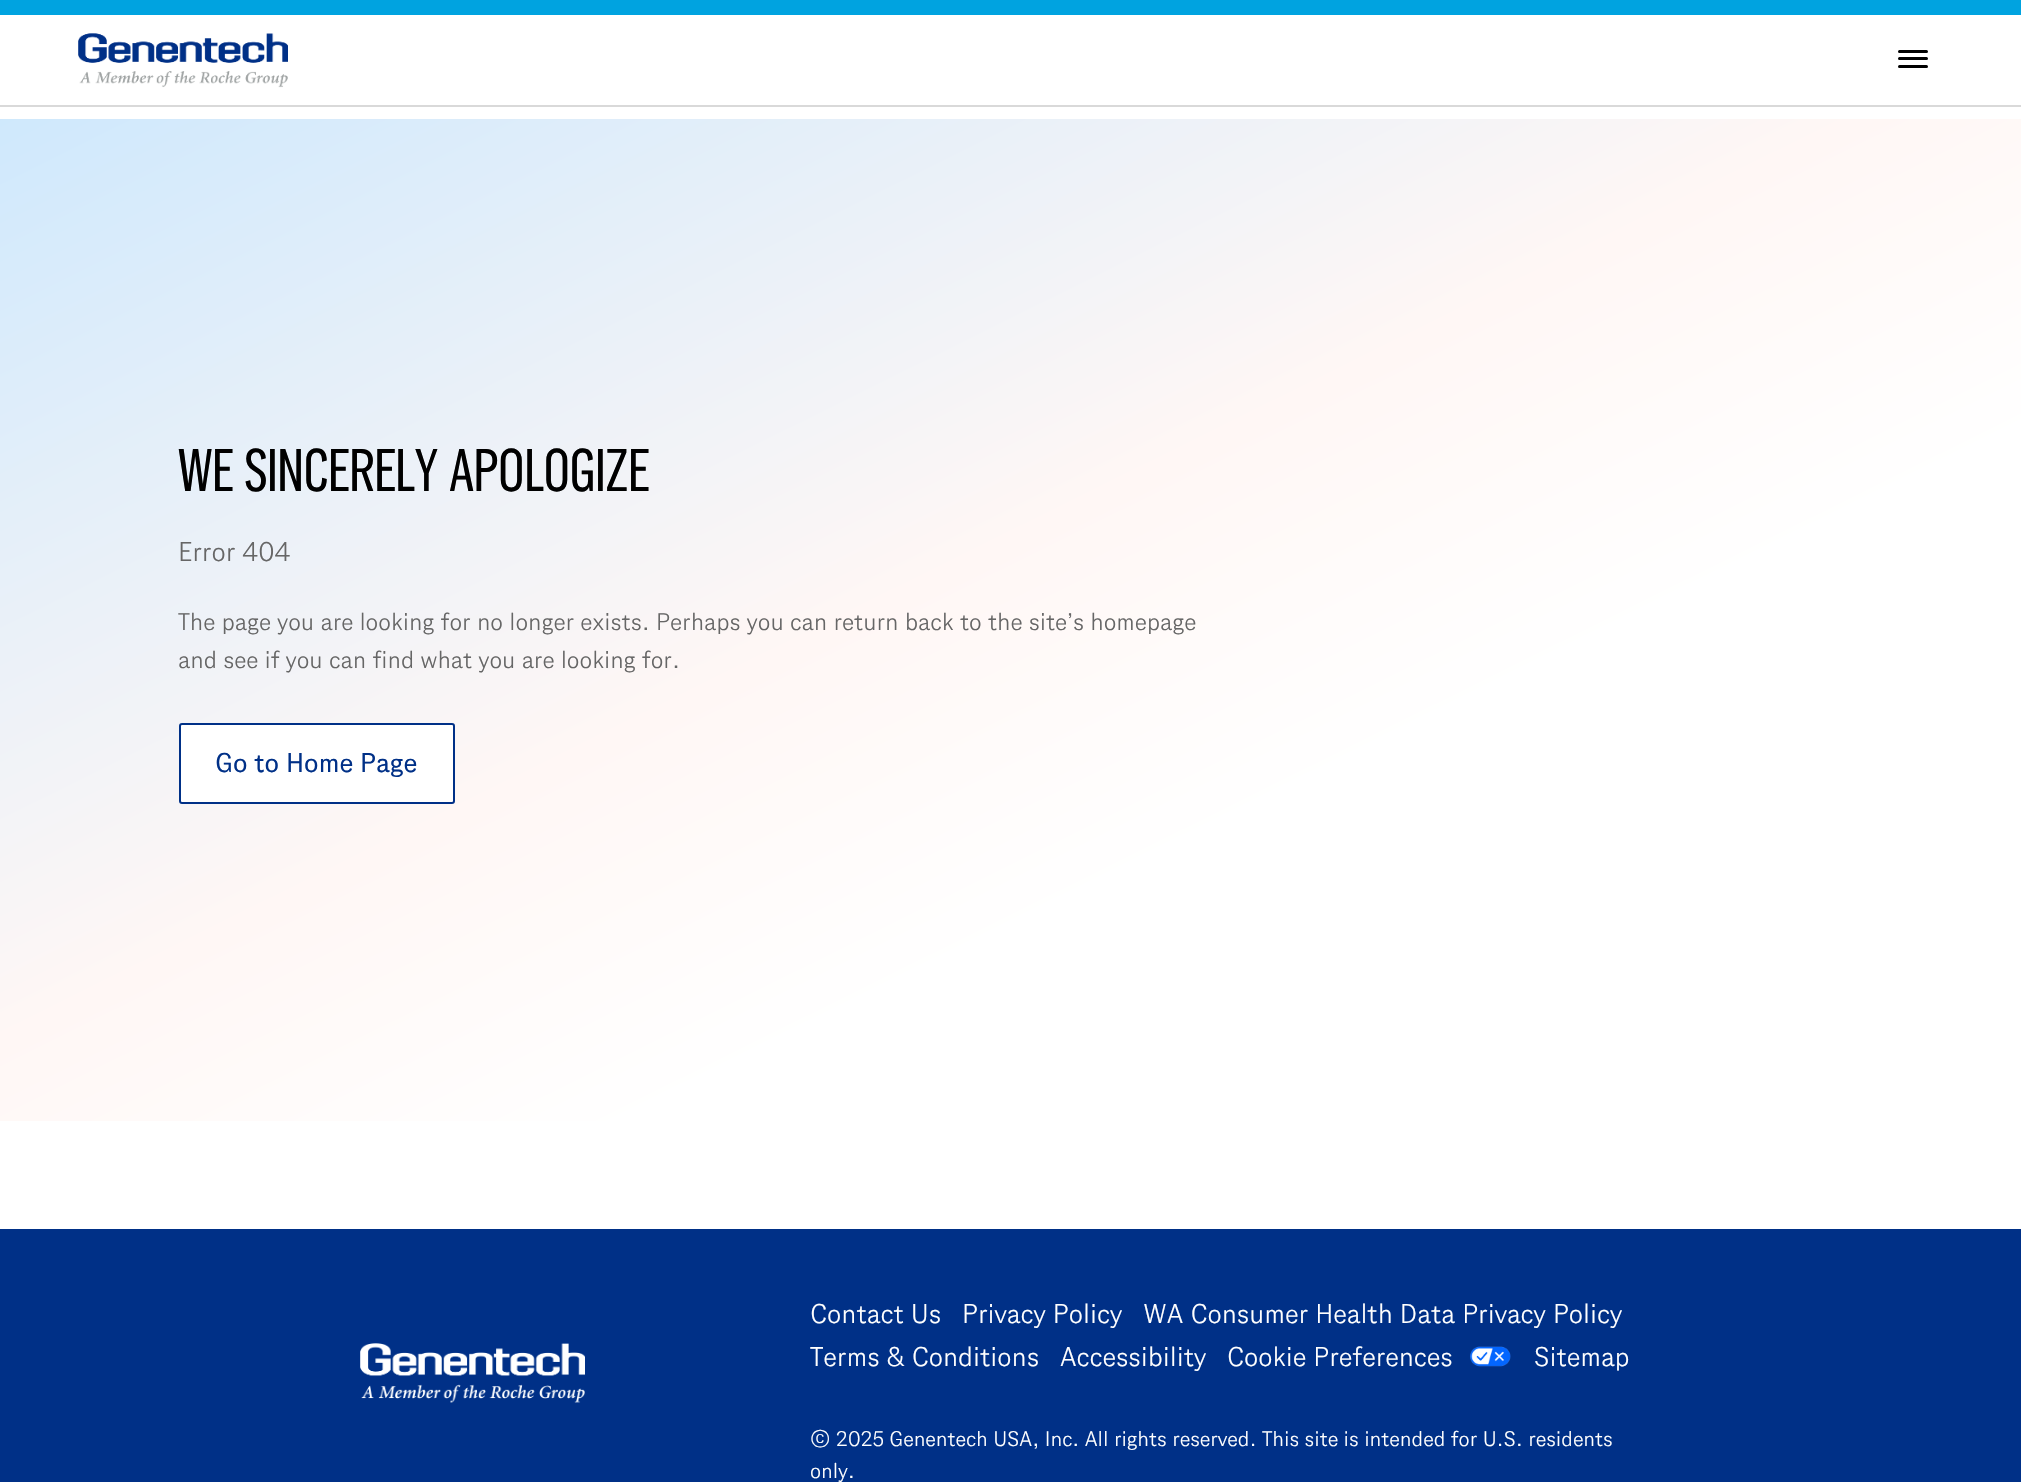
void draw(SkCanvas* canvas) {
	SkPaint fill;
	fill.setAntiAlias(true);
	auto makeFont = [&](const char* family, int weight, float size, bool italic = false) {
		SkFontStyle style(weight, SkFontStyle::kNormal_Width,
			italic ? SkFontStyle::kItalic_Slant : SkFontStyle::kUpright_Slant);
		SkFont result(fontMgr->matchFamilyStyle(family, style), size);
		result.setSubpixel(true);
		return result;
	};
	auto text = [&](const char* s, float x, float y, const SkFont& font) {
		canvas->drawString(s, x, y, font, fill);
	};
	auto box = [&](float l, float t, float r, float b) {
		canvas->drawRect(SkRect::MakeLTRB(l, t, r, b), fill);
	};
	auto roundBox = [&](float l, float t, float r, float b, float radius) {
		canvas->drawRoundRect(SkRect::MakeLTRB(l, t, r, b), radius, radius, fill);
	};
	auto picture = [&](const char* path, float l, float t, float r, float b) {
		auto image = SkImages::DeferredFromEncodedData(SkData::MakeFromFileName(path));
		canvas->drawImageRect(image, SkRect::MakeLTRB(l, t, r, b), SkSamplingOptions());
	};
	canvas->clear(0xFFFFFFFF);
	fill.setColor(0xFF00A3E0);
	box(0, 0, 2021, 15);
	fill.setColor(0xFFD9D9D9);
	box(0, 105, 2021, 107);
	picture("image0.png", 78, 33, 288, 88);
	fill.setColor(0xFF000000);
	roundBox(1898, 57, 1928, 60, 1.5f);
	roundBox(1898, 50, 1928, 53, 1.5f);
	roundBox(1898, 65, 1928, 68, 1.5f);
	{
		const SkColor colors[] = {0xFFBDE3FF, 0xFFFFF7F5, 0xFFFFFFFF};
		const float stops[] = {0, 0.54f, 0.71f};
		const SkPoint ends[] = {{473, -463}, {1409, 1424}};
		fill.setShader(SkGradientShader::MakeLinear(ends, colors, stops, 3, SkTileMode::kClamp));
		fill.setAlpha(255);
	}
	box(0, 119, 2021, 1121);
	fill.setShader(nullptr);
	fill.setColor(0xFFFFFFFF);
	canvas->drawRoundRect(SkRect::MakeLTRB(180, 724, 454, 803), 2, 2, fill);
	fill.setStyle(SkPaint::kStroke_Style);
	fill.setStrokeWidth(2);
	fill.setColor(0xFF003087);
	canvas->drawRoundRect(SkRect::MakeLTRB(180, 724, 454, 803), 2, 2, fill);
	fill.setStyle(SkPaint::kFill_Style);
	box(0, 1229, 2021, 1482);
	picture("image1.png", 360, 1343, 585, 1403);
	picture("image2.png", 1470, 1346, 1511, 1367);
	auto font1 = makeFont("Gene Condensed", 400, 60);
	fill.setColor(0xFF000000);
	text("WE SINCERELY APOLOGIZE", 178, 491, font1);
	auto font2 = makeFont("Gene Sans", 300, 27);
	fill.setColor(0xFF666666);
	text("Error 404", 178, 561, font2);
	auto font3 = makeFont("Gene Sans", 300, 24);
	text("The page you are looking for no longer exists. Perhaps you can return back to the site’s homepage", 178, 630, font3);
	text("and see if you can find what you are looking for.", 178, 668, font3);
	auto font4 = makeFont("Gene Sans", 400, 27);
	fill.setColor(0xFF003087);
	text("Go to Home Page", 215, 772, font4);
	fill.setColor(0xFFFFFFFF);
	text("Contact Us", 810, 1323, font2);
	text("Privacy Policy", 962, 1323, font2);
	text("WA Consumer Health Data Privacy Policy", 1143, 1323, font2);
	text("Terms & Conditions", 810, 1366, font2);
	text("Accessibility", 1060, 1366, font2);
	text("Cookie Preferences", 1227, 1366, font2);
	text("Sitemap", 1534, 1366, font2);
	auto font5 = makeFont("Gene Sans", 300, 21);
	text("© 2025 Genentech USA, Inc. All rights reserved. This site is intended for U.S. residents", 810, 1446, font5);
	text("only.", 810, 1478, font5);
}
